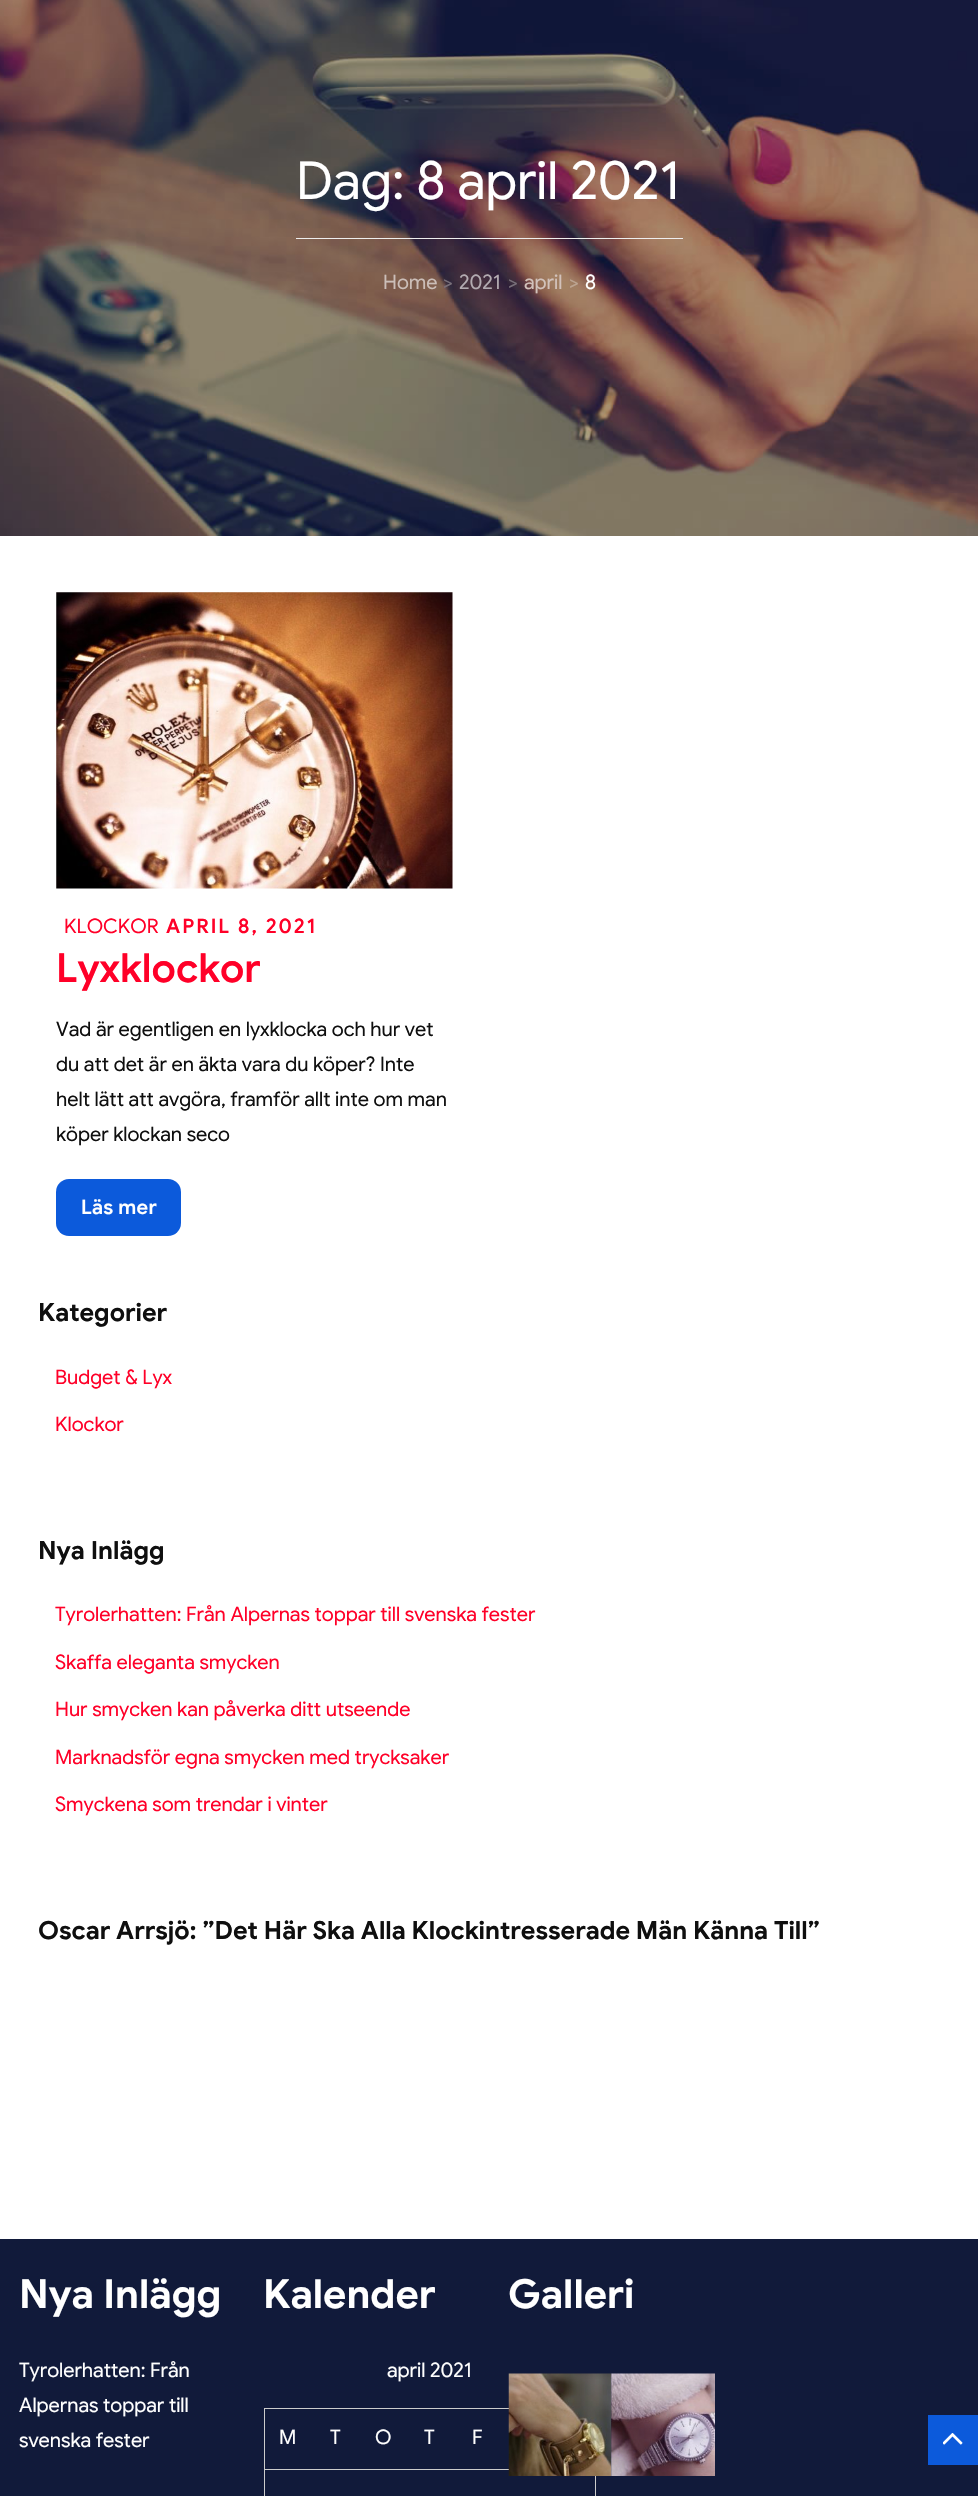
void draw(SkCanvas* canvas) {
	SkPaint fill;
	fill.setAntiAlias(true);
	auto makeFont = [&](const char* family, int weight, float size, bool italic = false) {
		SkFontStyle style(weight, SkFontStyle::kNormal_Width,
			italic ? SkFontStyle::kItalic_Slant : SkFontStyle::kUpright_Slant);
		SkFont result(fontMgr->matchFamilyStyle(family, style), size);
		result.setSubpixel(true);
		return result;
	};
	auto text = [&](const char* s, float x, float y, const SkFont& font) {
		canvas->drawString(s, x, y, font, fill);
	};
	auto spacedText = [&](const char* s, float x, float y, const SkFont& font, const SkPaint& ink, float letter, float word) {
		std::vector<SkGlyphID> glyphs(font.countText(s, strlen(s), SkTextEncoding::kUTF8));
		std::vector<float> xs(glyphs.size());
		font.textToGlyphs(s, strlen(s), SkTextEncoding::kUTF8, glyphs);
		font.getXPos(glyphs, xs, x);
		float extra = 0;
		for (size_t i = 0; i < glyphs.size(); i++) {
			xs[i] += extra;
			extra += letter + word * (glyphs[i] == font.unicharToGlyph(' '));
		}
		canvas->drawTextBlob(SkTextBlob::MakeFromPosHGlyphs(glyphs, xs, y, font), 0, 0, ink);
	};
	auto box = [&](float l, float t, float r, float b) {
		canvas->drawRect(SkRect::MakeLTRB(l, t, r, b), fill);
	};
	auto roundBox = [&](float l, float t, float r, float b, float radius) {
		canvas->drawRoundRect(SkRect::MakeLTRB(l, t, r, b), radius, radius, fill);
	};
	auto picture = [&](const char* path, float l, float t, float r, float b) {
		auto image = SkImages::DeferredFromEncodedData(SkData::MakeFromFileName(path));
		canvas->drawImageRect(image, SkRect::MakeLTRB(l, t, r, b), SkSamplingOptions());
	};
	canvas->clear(0xFFFFFFFF);
	picture("image0.png", 0, 0, 978, 536);
	fill.setColor(0xFFEEEEEE);
	box(296, 238, 683, 239);
	picture("image1.png", 56, 592, 453, 889);
	fill.setColor(0xFF0C5ADB);
	roundBox(56, 1179, 181, 1236, 13);
	fill.setColor(0xFF111A3A);
	box(0, 2239, 978, 2496);
	fill.setColor(0xFFCCCCCC);
	box(264, 2408, 509, 2409);
	box(264, 2469, 509, 2470);
	box(264, 2469, 265, 2496);
	box(264, 2408, 265, 2470);
	box(595, 2469, 596, 2496);
	picture("image2.png", 508, 2373, 612, 2476);
	picture("image3.png", 611, 2373, 715, 2476);
	fill.setColor(0xFF0C5ADB);
	box(928, 2415, 978, 2465);
	picture("image4.png", 943, 2433, 963, 2445);
	auto font1 = makeFont("Google Sans", 400, 52.5f);
	fill.setColor(0xFFFFFFFF);
	text("Dag: 8 april 2021", 296, 199, font1);
	auto font2 = makeFont("Google Sans", 400, 20);
	fill.setColor(0xFFCBBEB8);
	text("Home", 383, 289, font2);
	fill.setColor(0xFF786F79);
	text(">", 443, 289, font2);
	fill.setColor(0xFFB3ABB1);
	text("2021", 459, 289, font2);
	fill.setColor(0xFF786F79);
	text(">", 508, 289, font2);
	fill.setColor(0xFFD2C2BB);
	text("april", 524, 289, font2);
	fill.setColor(0xFFBCA491);
	text(">", 569, 289, font2);
	fill.setColor(0xFFFFFFFF);
	text("8", 585, 289, font2);
	fill.setColor(0xFFFF0028);
	text("KLOCKOR", 64, 933, font2);
	auto font3 = makeFont("Google Sans", 600, 20);
	spacedText("APRIL 8, 2021", 166, 933, font3, fill, 2, 0);
	auto font4 = makeFont("Google Sans", 600, 40);
	text("Lyxklockor", 56, 982, font4);
	fill.setColor(0xFF0F0F0F);
	text("Vad är egentligen en lyxklocka och hur vet", 56, 1036, font2);
	text("du att det är en äkta vara du köper? Inte", 56, 1071, font2);
	text("helt lätt att avgöra, framför allt inte om man", 56, 1106, font2);
	text("köper klockan seco", 56, 1141, font2);
	fill.setColor(0xFFFFFFFF);
	spacedText("Läs mer", 81, 1214, font3, fill, 0.25f, 0);
	auto font5 = makeFont("Google Sans", 700, 25);
	fill.setColor(0xFF0F0F0F);
	text("Kategorier", 38, 1321, font5);
	fill.setColor(0xFFFF0028);
	text("Budget & Lyx", 55, 1384, font2);
	text("Klockor", 55, 1431, font2);
	fill.setColor(0xFF0F0F0F);
	text("Nya Inlägg", 38, 1559, font5);
	fill.setColor(0xFFFF0028);
	text("Tyrolerhatten: Från Alpernas toppar till svenska fester", 55, 1621, font2);
	text("Skaffa eleganta smycken", 55, 1669, font2);
	text("Hur smycken kan påverka ditt utseende", 55, 1716, font2);
	text("Marknadsför egna smycken med trycksaker", 55, 1764, font2);
	text("Smyckena som trendar i vinter", 55, 1811, font2);
	fill.setColor(0xFF0F0F0F);
	text("Oscar Arrsjö: ”Det Här Ska Alla Klockintresserade Män Känna Till”", 38, 1939, font5);
	auto font6 = makeFont("Google Sans", 700, 40);
	fill.setColor(0xFFFFFFFF);
	text("Nya Inlägg", 19, 2308, font6);
	text("Tyrolerhatten: Från", 19, 2377, font2);
	text("Alpernas toppar till", 19, 2412, font2);
	text("svenska fester", 19, 2447, font2);
	text("Kalender", 263, 2308, font6);
	text("april 2021", 387, 2377, font2);
	text("M", 279, 2444, font2);
	text("T", 330, 2444, font2);
	text("O", 375, 2444, font2);
	text("T", 424, 2444, font2);
	text("F", 472, 2444, font2);
	text("Galleri", 508, 2308, font6);
}
